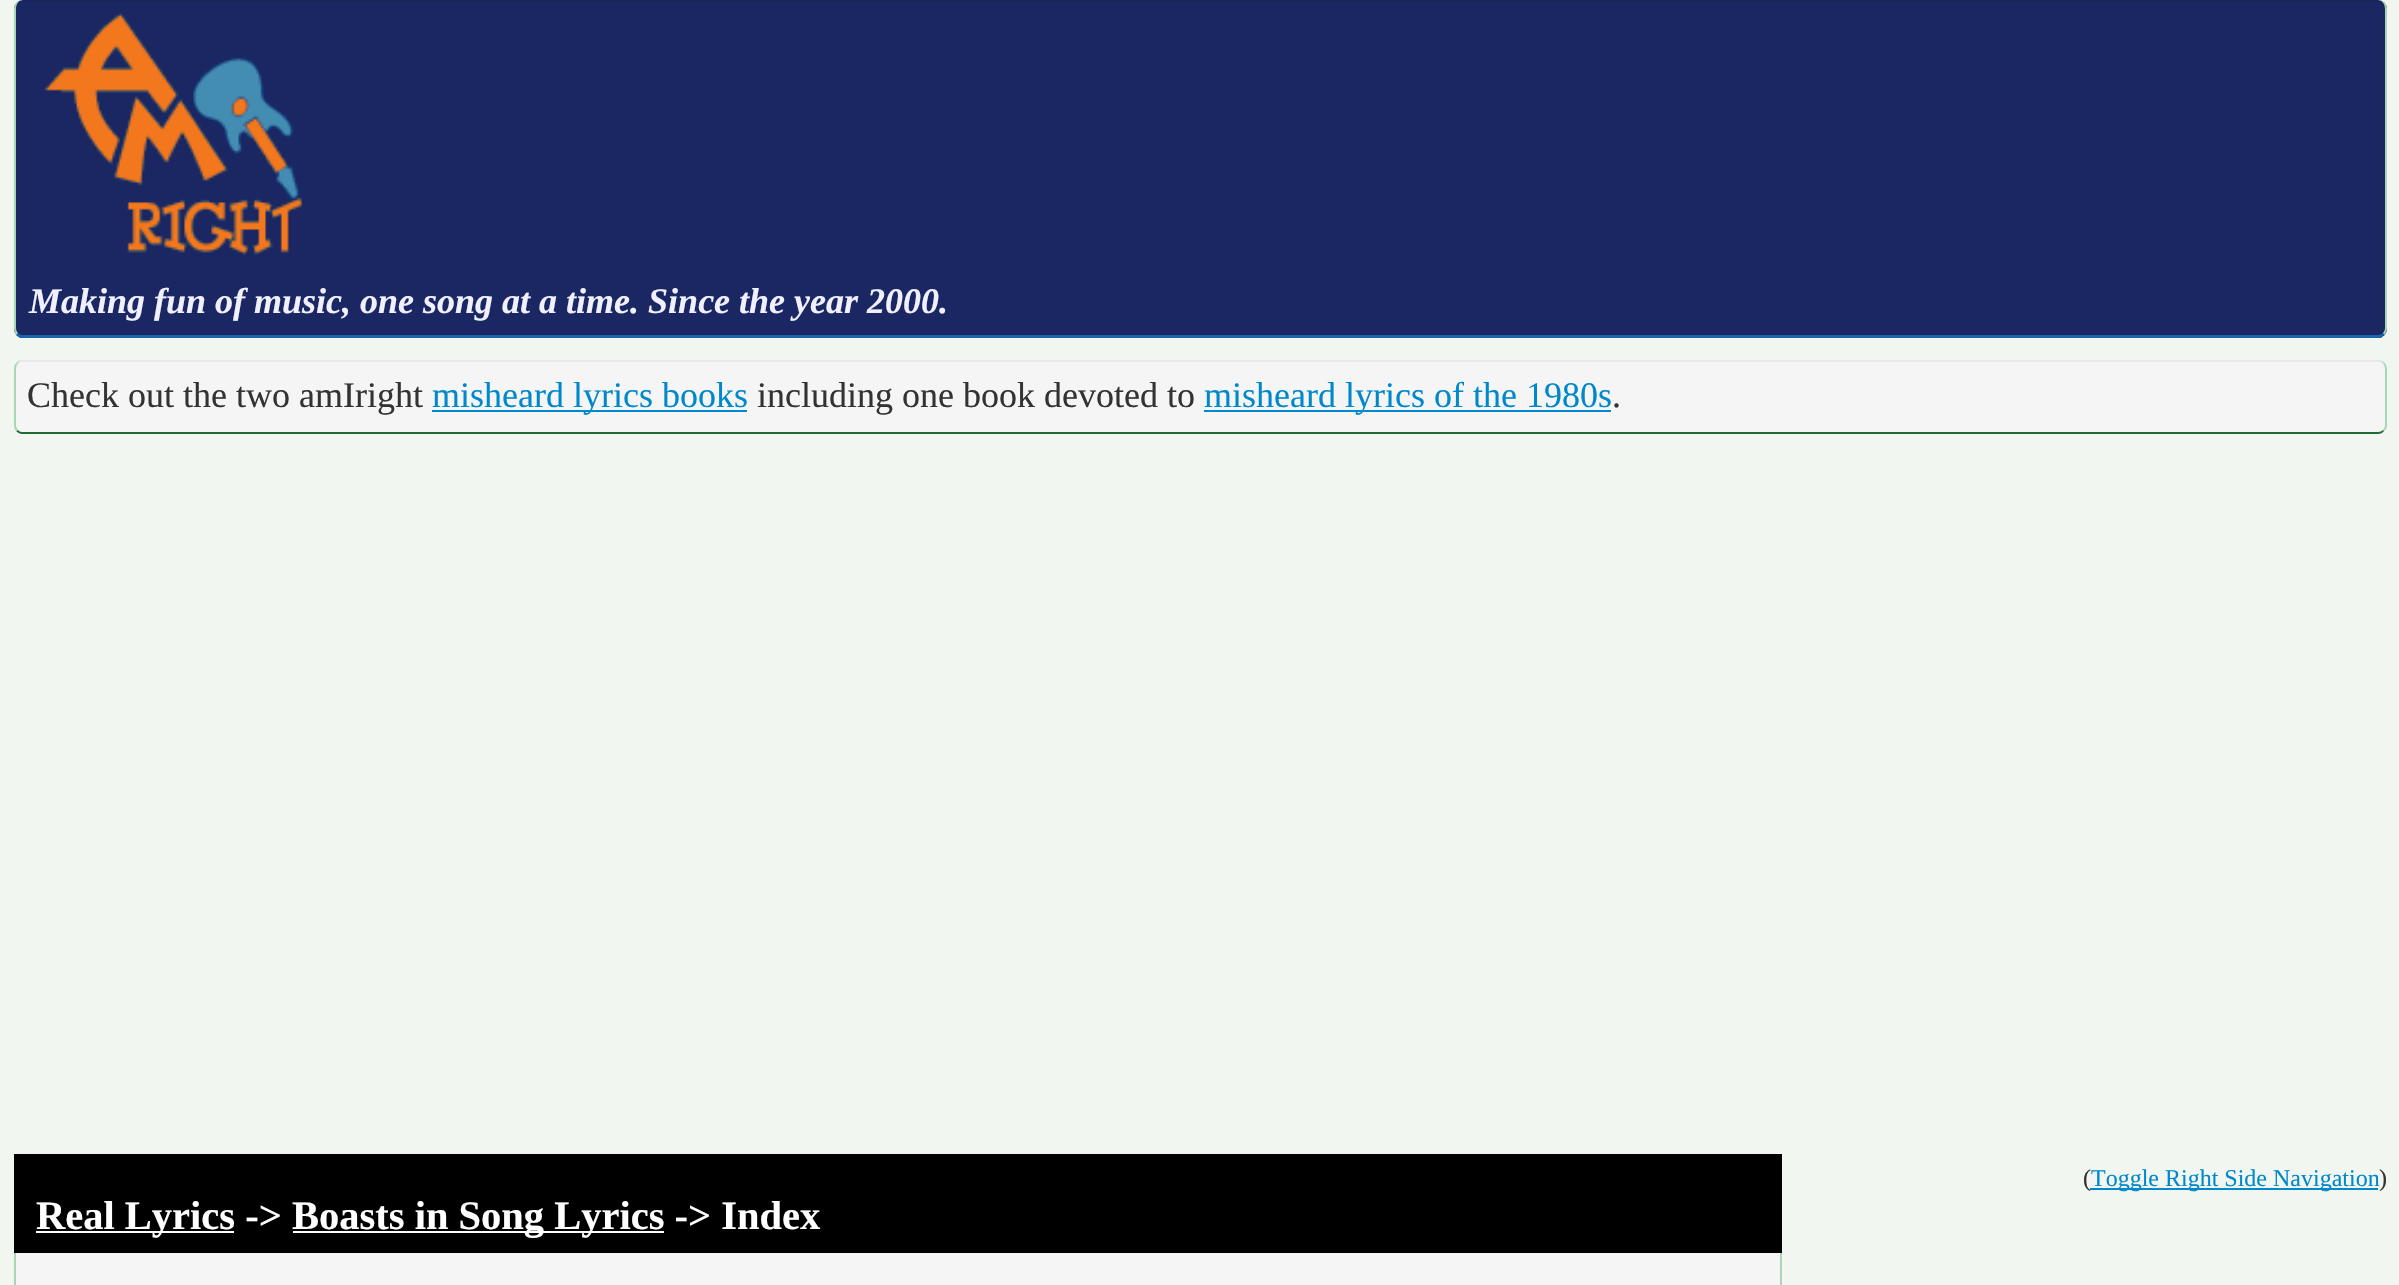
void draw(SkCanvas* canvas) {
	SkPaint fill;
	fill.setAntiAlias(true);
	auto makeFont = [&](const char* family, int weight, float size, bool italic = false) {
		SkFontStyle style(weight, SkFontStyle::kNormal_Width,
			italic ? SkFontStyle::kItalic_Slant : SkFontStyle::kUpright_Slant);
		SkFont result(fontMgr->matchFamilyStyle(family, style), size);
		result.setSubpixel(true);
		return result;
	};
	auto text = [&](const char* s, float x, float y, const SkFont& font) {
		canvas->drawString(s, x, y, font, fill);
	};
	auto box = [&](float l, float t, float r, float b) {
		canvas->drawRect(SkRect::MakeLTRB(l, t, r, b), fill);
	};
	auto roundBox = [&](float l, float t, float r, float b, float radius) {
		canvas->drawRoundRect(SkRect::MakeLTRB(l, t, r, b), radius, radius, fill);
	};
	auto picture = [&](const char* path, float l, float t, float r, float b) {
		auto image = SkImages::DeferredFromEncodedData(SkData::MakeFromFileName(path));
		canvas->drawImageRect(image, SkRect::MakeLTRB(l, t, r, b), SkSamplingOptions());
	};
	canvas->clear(0xFFF1F6F0);
	fill.setColor(0xFF1B2763);
	roundBox(14, 0, 2387, 338, 9);
	fill.setColor(0x0D000000);
	canvas->drawPath(SkPathBuilder().moveTo(22, 2).lineTo(2378, 2).cubicTo(2382, 2, 2385, 6, 2385, 11).cubicTo(2385, 7, 2384, 0, 2378, 0).lineTo(22, 0).cubicTo(9, 0, 16, 46, 16, 62).lineTo(16, 330).lineTo(16, 11).cubicTo(16, 6, 19, 2, 22, 2).close().detach(), fill);
	fill.setColor(0xFFA6D6B3);
	canvas->drawPath(SkPathBuilder().moveTo(2387, 9).cubicTo(2387, 4, 2383, 0, 2378, 0).cubicTo(2382, 0, 2385, 4, 2385, 9).lineTo(2385, 328).cubicTo(2385, 330, 2384, 332, 2383, 333).lineTo(2384, 335).cubicTo(2386, 333, 2387, 330, 2387, 328).close().detach(), fill);
	fill.setColor(0xFF1966AC);
	canvas->drawPath(SkPathBuilder().moveTo(18, 333).cubicTo(19, 334, 21, 335, 22, 335).lineTo(2378, 335).cubicTo(2380, 335, 2382, 334, 2383, 333).lineTo(2384, 335).lineTo(2381, 338).lineTo(20, 338).lineTo(16, 335).close().detach(), fill);
	fill.setColor(0xFFA6D6B3);
	canvas->drawPath(SkPathBuilder().moveTo(22, 0).cubicTo(19, 0, 16, 4, 16, 9).lineTo(16, 328).cubicTo(16, 330, 17, 332, 18, 333).lineTo(16, 335).cubicTo(15, 333, 14, 330, 14, 328).lineTo(14, 9).cubicTo(14, 4, 18, 0, 22, 0).close().detach(), fill);
	picture("image0.png", 44, 13, 303, 255);
	fill.setColor(0xFFF5F5F5);
	roundBox(14, 360, 2387, 434, 9);
	fill.setColor(0xFFE9E9E9);
	canvas->drawPath(SkPathBuilder().moveTo(22, 362).lineTo(2378, 362).cubicTo(2382, 362, 2385, 366, 2385, 371).lineTo(2385, 369).cubicTo(2385, 364, 2382, 360, 2378, 360).lineTo(22, 360).cubicTo(19, 360, 16, 364, 16, 369).lineTo(16, 427).lineTo(16, 371).cubicTo(16, 366, 19, 362, 22, 362).close().detach(), fill);
	fill.setColor(0xFFA6D6B3);
	canvas->drawPath(SkPathBuilder().moveTo(2387, 369).cubicTo(2387, 364, 2383, 360, 2378, 360).cubicTo(2382, 360, 2385, 364, 2385, 369).lineTo(2385, 425).cubicTo(2385, 427, 2384, 429, 2383, 430).lineTo(2384, 431).cubicTo(2386, 430, 2387, 428, 2387, 425).close().detach(), fill);
	fill.setColor(0xFF1D6D33);
	canvas->drawPath(SkPathBuilder().moveTo(18, 430).cubicTo(19, 431, 20, 432, 22, 432).lineTo(2378, 432).cubicTo(2380, 432, 2382, 431, 2383, 430).lineTo(2384, 431).cubicTo(2383, 433, 2380, 434, 2378, 434).lineTo(22, 434).cubicTo(20, 434, 18, 433, 16, 431).close().detach(), fill);
	fill.setColor(0xFFA6D6B3);
	canvas->drawPath(SkPathBuilder().moveTo(22, 360).cubicTo(19, 360, 16, 364, 16, 369).lineTo(16, 425).cubicTo(16, 427, 17, 429, 18, 430).lineTo(16, 431).cubicTo(15, 430, 14, 427, 14, 425).lineTo(14, 369).cubicTo(14, 364, 18, 360, 22, 360).close().detach(), fill);
	fill.setColor(0xFF0088CC);
	box(432, 410, 747, 412);
	box(1204, 410, 1611, 412);
	fill.setColor(0xFFF5F5F5);
	box(16, 1253, 1780, 1285);
	fill.setColor(0xFFA6D6B3);
	canvas->drawPath(SkPathBuilder().moveTo(1778, 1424).cubicTo(1779, 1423, 1780, 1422, 1780, 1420).lineTo(1780, 1163).cubicTo(1780, 1159, 1778, 1155, 1775, 1154).cubicTo(1779, 1154, 1782, 1159, 1782, 1163).lineTo(1782, 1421).cubicTo(1782, 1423, 1781, 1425, 1779, 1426).close().detach(), fill);
	canvas->drawPath(SkPathBuilder().moveTo(21, 1154).cubicTo(18, 1155, 16, 1159, 16, 1163).lineTo(16, 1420).cubicTo(16, 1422, 17, 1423, 18, 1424).lineTo(16, 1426).cubicTo(15, 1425, 14, 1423, 14, 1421).lineTo(14, 1163).cubicTo(14, 1160, 17, 1154, 21, 1154).close().detach(), fill);
	fill.setColor(0xFF000000);
	box(14, 1154, 1782, 1253);
	fill.setColor(0xFFFFFFFF);
	box(36, 1231, 234, 1233);
	box(293, 1231, 664, 1233);
	auto font1 = makeFont("Liberation Serif", 700, 36, true);
	fill.setColor(0xFFF0F0FF);
	text("Making fun of music, one song at a time. Since the year 2000.", 29, 313, font1);
	auto font2 = makeFont("Liberation Serif", 400, 36);
	fill.setColor(0xFF333333);
	text("Check out the two amIright", 27, 407, font2);
	fill.setColor(0xFF0088CC);
	text("misheard lyrics books", 432, 407, font2);
	fill.setColor(0xFF333333);
	text("including one book devoted to", 757, 407, font2);
	fill.setColor(0xFF0088CC);
	text("misheard lyrics of the 1980s", 1204, 407, font2);
	fill.setColor(0xFF333333);
	text(".", 1612, 407, font2);
	auto font3 = makeFont("Liberation Serif", 400, 24);
	text("(", 2083, 1186, font3);
	fill.setColor(0xFF0088CC);
	box(2090, 1188, 2378, 1190);
	text("Toggle Right Side Navigation", 2091, 1186, font3);
	fill.setColor(0xFF333333);
	text(")", 2379, 1186, font3);
	auto font4 = makeFont("Liberation Serif", 700, 40.5f);
	fill.setColor(0xFFFFFFFF);
	text("Real Lyrics ->", 36, 1229, font4);
	text("Boasts in Song Lyrics -> Index", 292, 1229, font4);
}
